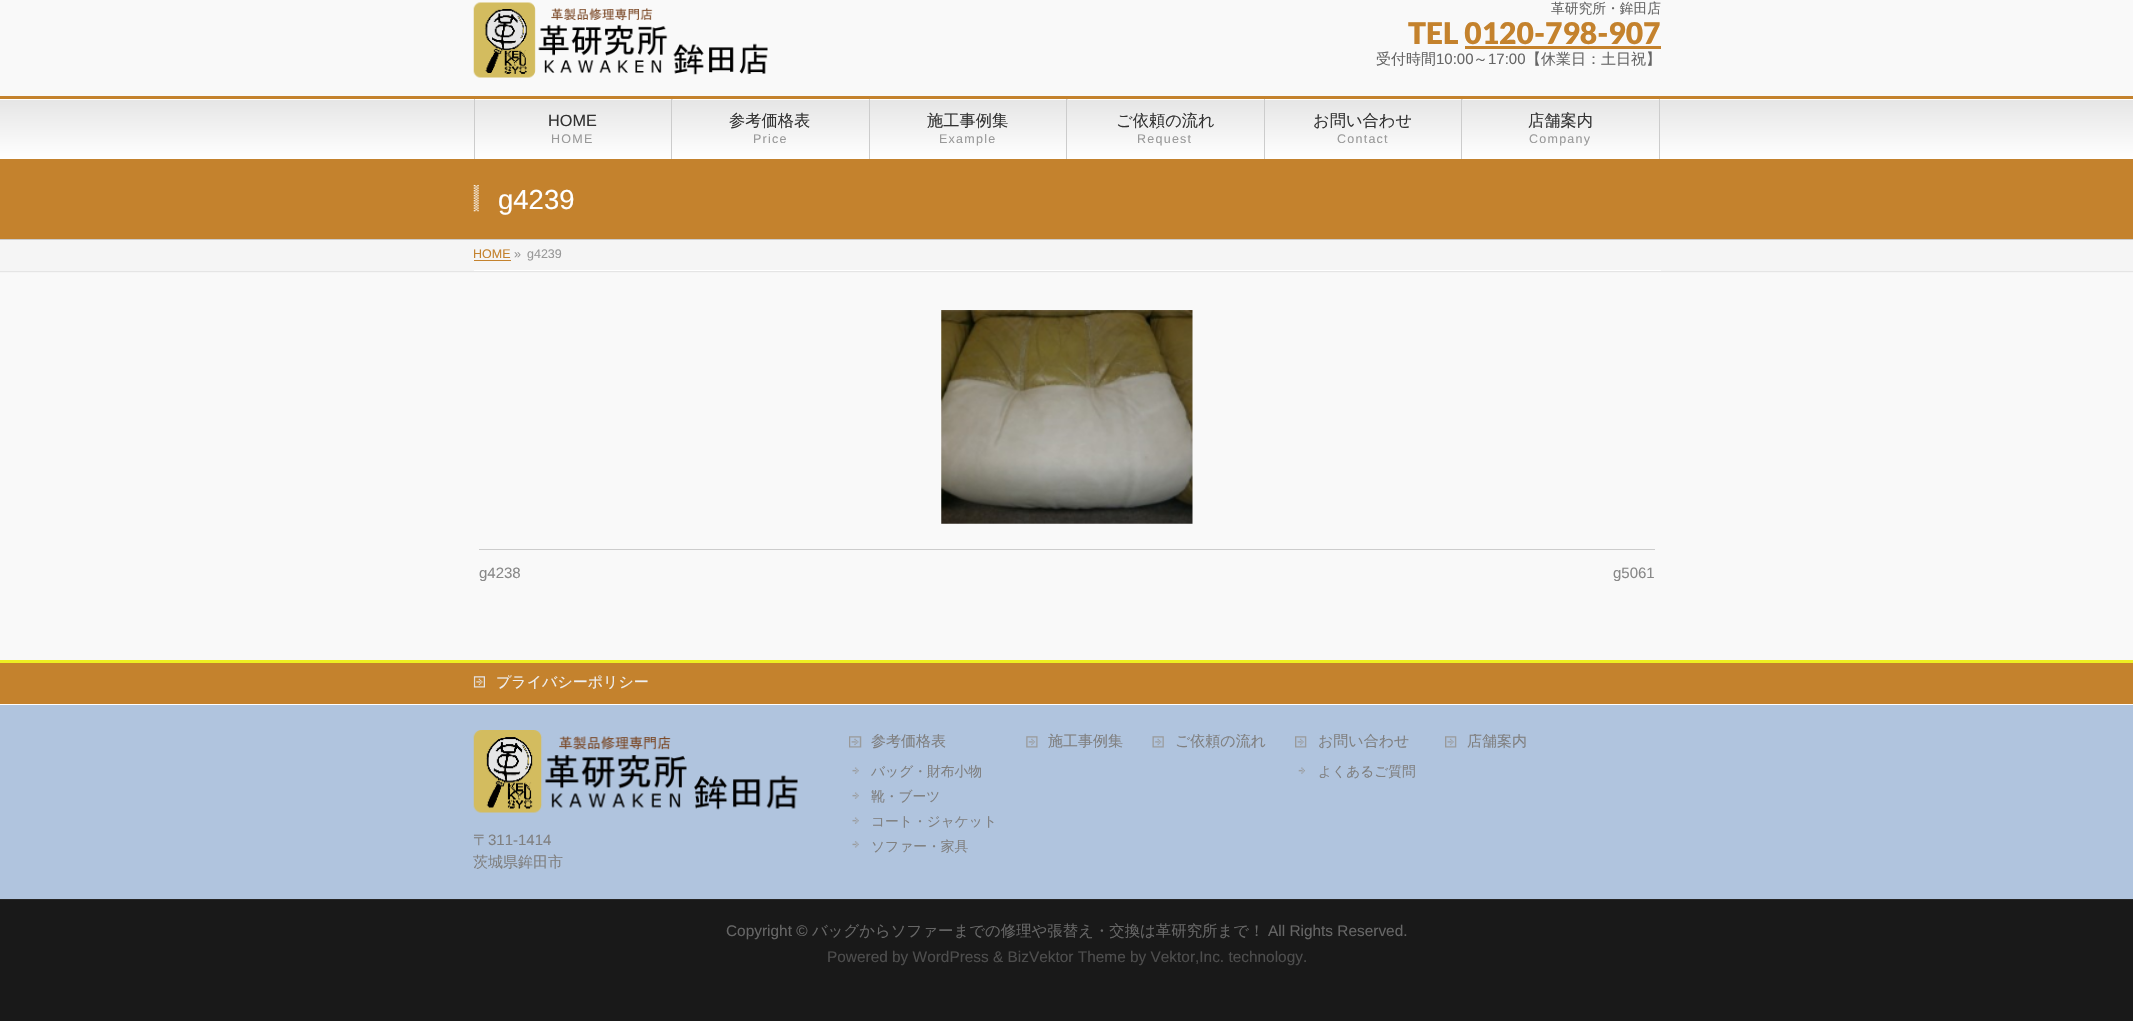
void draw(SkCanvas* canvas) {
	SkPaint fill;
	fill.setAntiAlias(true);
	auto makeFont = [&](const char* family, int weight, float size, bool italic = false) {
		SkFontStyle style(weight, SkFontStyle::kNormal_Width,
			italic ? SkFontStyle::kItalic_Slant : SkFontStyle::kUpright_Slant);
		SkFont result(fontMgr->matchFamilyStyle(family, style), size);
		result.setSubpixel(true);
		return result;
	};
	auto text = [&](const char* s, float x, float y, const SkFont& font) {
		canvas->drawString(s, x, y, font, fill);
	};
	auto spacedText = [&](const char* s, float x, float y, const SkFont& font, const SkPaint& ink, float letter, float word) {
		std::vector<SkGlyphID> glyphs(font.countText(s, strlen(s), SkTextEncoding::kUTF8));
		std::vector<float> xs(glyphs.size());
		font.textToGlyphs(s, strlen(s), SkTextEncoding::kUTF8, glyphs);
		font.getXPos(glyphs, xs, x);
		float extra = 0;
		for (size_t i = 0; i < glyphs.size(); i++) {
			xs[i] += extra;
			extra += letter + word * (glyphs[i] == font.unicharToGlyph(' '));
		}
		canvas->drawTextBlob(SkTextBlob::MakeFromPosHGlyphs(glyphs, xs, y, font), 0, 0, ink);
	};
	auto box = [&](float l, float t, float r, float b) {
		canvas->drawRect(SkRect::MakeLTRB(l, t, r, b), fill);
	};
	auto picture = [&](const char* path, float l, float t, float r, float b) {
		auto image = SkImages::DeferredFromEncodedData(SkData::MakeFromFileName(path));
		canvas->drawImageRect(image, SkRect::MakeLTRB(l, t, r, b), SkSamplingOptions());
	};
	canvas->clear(0xFFF9F9F9);
	picture("image0.png", 473, 2, 768, 78);
	fill.setColor(0xFFC4822D);
	box(1465, 46, 1661, 49);
	{
		const SkColor colors[] = {0xFFE5E5E5, 0xFFFFFFFF};
		const float stops[] = {0, 1};
		const SkPoint ends[] = {{1067, 99}, {1067, 159}};
		fill.setShader(SkGradientShader::MakeLinear(ends, colors, stops, 2, SkTileMode::kClamp));
		fill.setAlpha(255);
	}
	box(0, 100, 2133, 159);
	fill.setShader(nullptr);
	fill.setColor(0xFFFFFFFF);
	box(0, 99, 2133, 100);
	fill.setColor(0xFFC4822D);
	box(0, 96, 2133, 99);
	fill.setColor(0xFFCCCCCC);
	box(474, 99, 475, 159);
	{
		const SkColor colors[] = {0xFFE5E5E5, 0xFFFFFFFF};
		const float stops[] = {0, 1};
		const SkPoint ends[] = {{475, 99}, {475, 159}};
		fill.setShader(SkGradientShader::MakeLinear(ends, colors, stops, 2, SkTileMode::kClamp));
		fill.setAlpha(255);
	}
	box(475, 99, 673, 100);
	fill.setShader(nullptr);
	fill.setColor(0xFFFFFFFF);
	box(475, 99, 671, 100);
	fill.setColor(0xFFCCCCCC);
	box(671, 99, 672, 159);
	box(869, 99, 870, 159);
	{
		const SkColor colors[] = {0xFFE5E5E5, 0xFFFFFFFF};
		const float stops[] = {0, 1};
		const SkPoint ends[] = {{870, 99}, {870, 159}};
		fill.setShader(SkGradientShader::MakeLinear(ends, colors, stops, 2, SkTileMode::kClamp));
		fill.setAlpha(255);
	}
	box(870, 99, 1068, 100);
	fill.setShader(nullptr);
	fill.setColor(0xFFFFFFFF);
	box(870, 99, 1066, 100);
	fill.setColor(0xFFCCCCCC);
	box(1066, 99, 1067, 159);
	box(1264, 99, 1265, 159);
	{
		const SkColor colors[] = {0xFFE5E5E5, 0xFFFFFFFF};
		const float stops[] = {0, 1};
		const SkPoint ends[] = {{1265, 99}, {1265, 159}};
		fill.setShader(SkGradientShader::MakeLinear(ends, colors, stops, 2, SkTileMode::kClamp));
		fill.setAlpha(255);
	}
	box(1265, 99, 1463, 100);
	fill.setShader(nullptr);
	fill.setColor(0xFFFFFFFF);
	box(1265, 99, 1461, 100);
	fill.setColor(0xFFCCCCCC);
	box(1461, 99, 1462, 159);
	box(1659, 99, 1660, 159);
	fill.setColor(0xFFC4822D);
	box(0, 159, 2133, 239);
	fill.setColor(0xFFCCCCCC);
	box(0, 239, 2133, 240);
	picture("image1.png", 473, 185, 479, 212);
	fill.setColor(0xFFF5F5F5);
	box(0, 240, 2133, 273);
	fill.setColor(0xFFE5E5E5);
	box(0, 271, 2133, 272);
	fill.setColor(0xFFFFFFFF);
	box(474, 270, 1661, 271);
	fill.setColor(0xFFC4822D);
	box(474, 260, 511, 261);
	picture("image2.png", 941, 310, 1193, 524);
	fill.setColor(0xFFCCCCCC);
	box(479, 549, 1655, 550);
	fill.setColor(0xFFC4822D);
	box(0, 663, 2133, 704);
	fill.setColor(0xFFEEEE22);
	box(0, 660, 2133, 663);
	picture("image3.png", 473, 676, 485, 688);
	fill.setColor(0xFFB0C4DE);
	box(0, 705, 2133, 899);
	fill.setColor(0xFFFFFFFF);
	box(0, 704, 2133, 705);
	picture("image4.png", 473, 730, 798, 813);
	picture("image5.png", 849, 736, 862, 748);
	picture("image6.png", 852, 767, 859, 774);
	picture("image6.png", 852, 792, 859, 799);
	picture("image6.png", 852, 817, 859, 824);
	picture("image7.png", 852, 841, 859, 848);
	picture("image8.png", 1026, 736, 1038, 748);
	picture("image9.png", 1152, 736, 1164, 748);
	picture("image10.png", 1295, 736, 1307, 748);
	picture("image11.png", 1298, 767, 1305, 774);
	picture("image12.png", 1445, 736, 1457, 748);
	fill.setColor(0xFF191919);
	box(0, 900, 2133, 1021);
	fill.setColor(0xFF262626);
	box(0, 899, 2133, 900);
	auto font1 = makeFont("WenQuanYi Zen Hei", 500, 13.75f);
	fill.setColor(0xFF666666);
	text("革研究所・鉾田店", 1551, 13, font1);
	auto font2 = makeFont("Lato", 900, 30);
	fill.setColor(0xFFC4822D);
	text("TEL 0120-798-907", 1408, 44, font2);
	auto font3 = makeFont("WenQuanYi Zen Hei", 500, 15);
	fill.setColor(0xFF666666);
	text("受付時間", 1376, 64, font3);
	auto font4 = makeFont("Liberation Sans", 400, 15);
	text("10:00", 1436, 64, font4);
	text("～", 1473, 64, font3);
	text("17:00", 1488, 64, font4);
	text("【休業日：土日祝】", 1526, 64, font3);
	auto font5 = makeFont("Liberation Sans", 400, 16.25f);
	fill.setColor(0xFF333333);
	text("HOME", 548, 126, font5);
	auto font6 = makeFont("Liberation Sans", 400, 12.5f);
	fill.setColor(0xFF999999);
	spacedText("HOME", 551, 143, font6, fill, 1.25f, 0);
	auto font7 = makeFont("WenQuanYi Zen Hei", 500, 16.25f);
	fill.setColor(0xFF333333);
	text("参考価格表", 729, 126, font7);
	fill.setColor(0xFF999999);
	spacedText("Price", 753, 143, font6, fill, 1.25f, 0);
	fill.setColor(0xFF333333);
	text("施工事例集", 927, 126, font7);
	fill.setColor(0xFF999999);
	spacedText("Example", 939, 143, font6, fill, 1.25f, 0);
	fill.setColor(0xFF333333);
	text("ご依頼の流れ", 1116, 126, font7);
	fill.setColor(0xFF999999);
	spacedText("Request", 1137, 143, font6, fill, 1.25f, 0);
	fill.setColor(0xFF333333);
	text("お問い合わせ", 1313, 126, font7);
	fill.setColor(0xFF999999);
	spacedText("Contact", 1337, 143, font6, fill, 1.25f, 0);
	fill.setColor(0xFF333333);
	text("店舗案内", 1528, 126, font7);
	fill.setColor(0xFF999999);
	spacedText("Company", 1529, 143, font6, fill, 1.25f, 0);
	auto font8 = makeFont("Liberation Sans", 400, 27.5f);
	fill.setColor(0xFFFFFFFF);
	text("g4239", 498, 209, font8);
	fill.setColor(0xFFC4822D);
	text("HOME", 473, 258, font6);
	fill.setColor(0xFF999999);
	text("»", 514, 258, font6);
	text("g4239", 527, 258, font6);
	fill.setColor(0xFF888888);
	text("g4238", 479, 578, font4);
	text("g5061", 1613, 578, font4);
	canvas->save();
	canvas->clipRect(SkRect::MakeLTRB(474, 675, 1661, 691));
	fill.setColor(0xFFEFEFEF);
	text("プライバシーポリシー", 496, 687, font3);
	canvas->restore();
	fill.setColor(0xFF808080);
	text("〒", 473, 845, font3);
	text("311-1414", 488, 845, font4);
	text("茨城県鉾田市", 473, 867, font3);
	canvas->save();
	canvas->clipRect(SkRect::MakeLTRB(849, 734, 1021, 756));
	text("参考価格表", 871, 746, font3);
	canvas->restore();
	text("バッグ・財布小物", 871, 776, font1);
	text("靴・ブーツ", 871, 801, font1);
	text("コート・ジャケット", 871, 826, font1);
	text("ソファー・家具", 871, 851, font1);
	text("施工事例集", 1048, 746, font3);
	canvas->save();
	canvas->clipRect(SkRect::MakeLTRB(1153, 734, 1291, 756));
	text("ご依頼の流れ", 1175, 746, font3);
	canvas->restore();
	text("お問い合わせ", 1318, 746, font3);
	text("よくあるご質問", 1318, 776, font1);
	canvas->save();
	canvas->clipRect(SkRect::MakeLTRB(1445, 734, 1553, 756));
	text("店舗案内", 1467, 746, font3);
	canvas->restore();
	auto font9 = makeFont("Liberation Sans", 400, 15.4f);
	fill.setColor(0xFF666666);
	text("Copyright ©", 726, 936, font9);
	auto font10 = makeFont("WenQuanYi Zen Hei", 500, 15.4f);
	text("バッグからソファーまでの修理や張替え・交換は革研究所まで！", 812, 936, font10);
	text("All Rights Reserved.", 1268, 936, font9);
	fill.setColor(0xFF4D4D4D);
	text("Powered by WordPress & BizVektor Theme by Vektor,Inc. technology.", 827, 962, font9);
}
